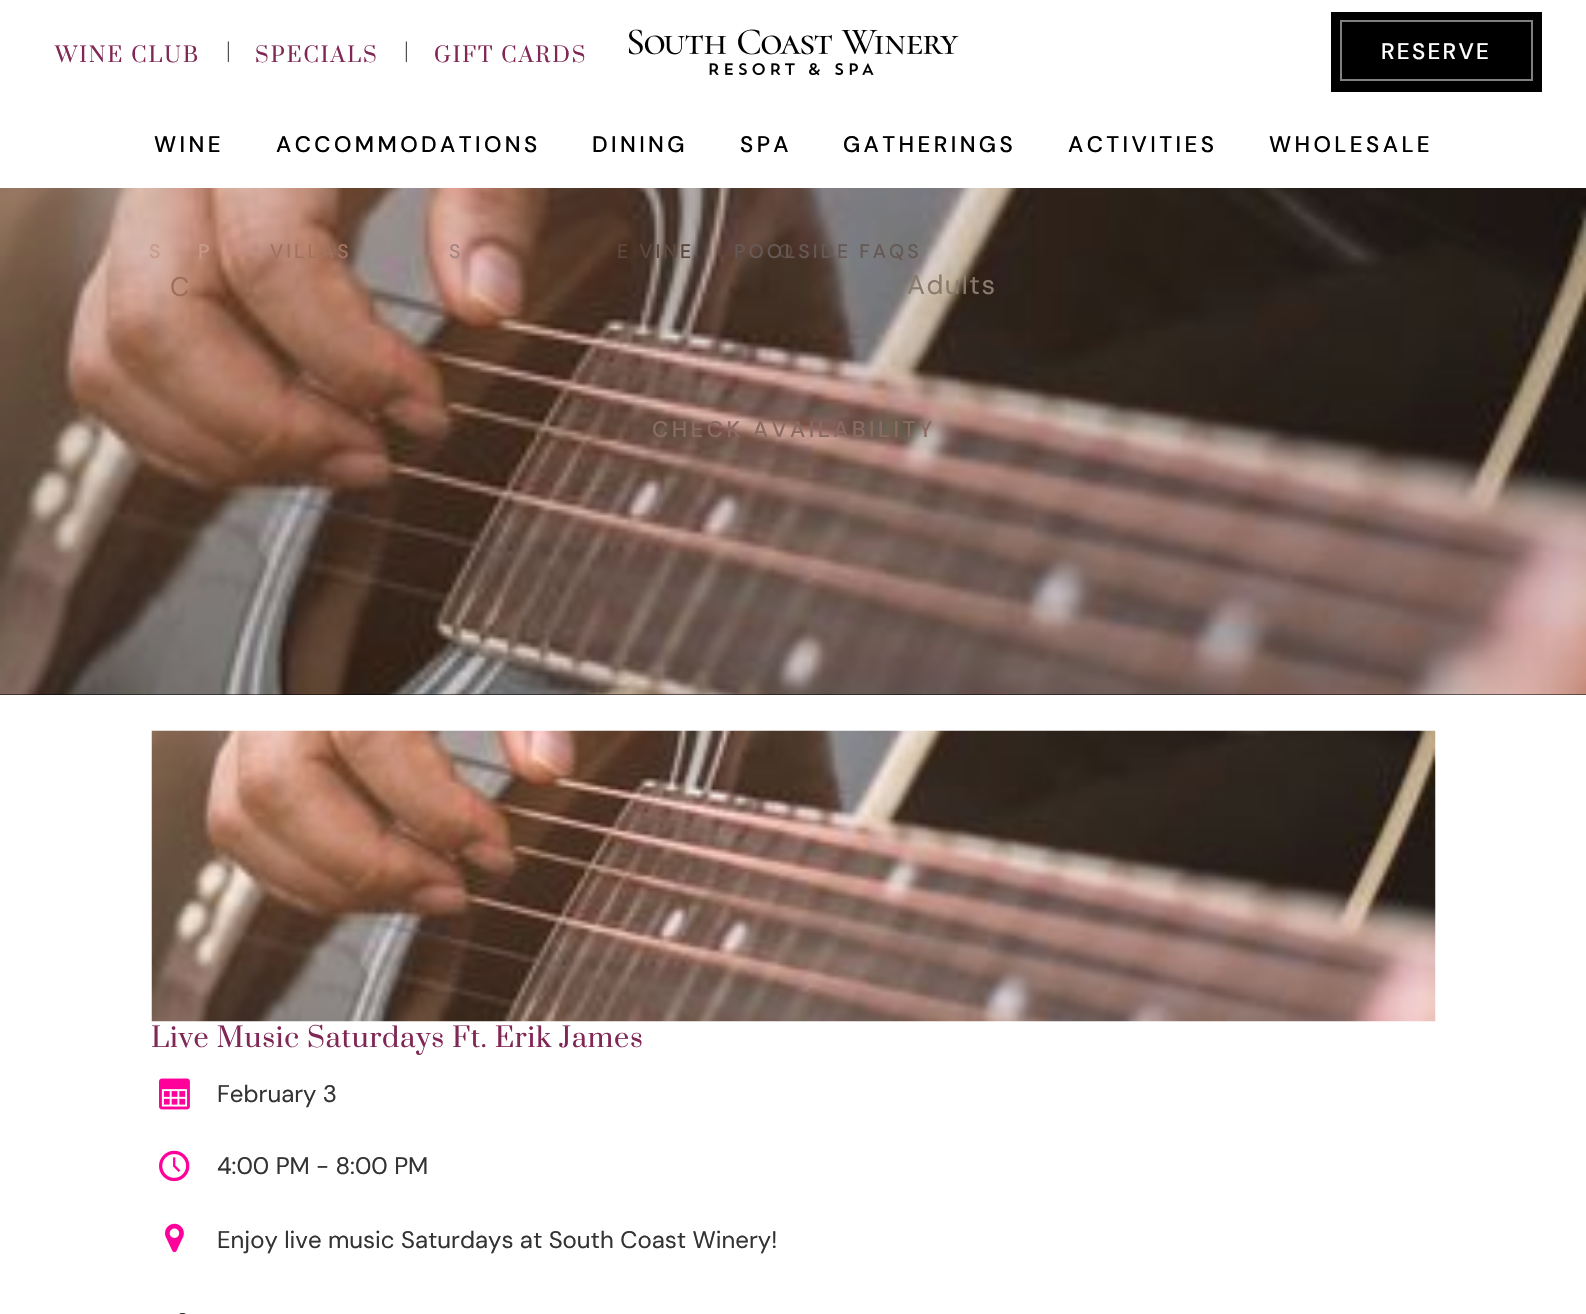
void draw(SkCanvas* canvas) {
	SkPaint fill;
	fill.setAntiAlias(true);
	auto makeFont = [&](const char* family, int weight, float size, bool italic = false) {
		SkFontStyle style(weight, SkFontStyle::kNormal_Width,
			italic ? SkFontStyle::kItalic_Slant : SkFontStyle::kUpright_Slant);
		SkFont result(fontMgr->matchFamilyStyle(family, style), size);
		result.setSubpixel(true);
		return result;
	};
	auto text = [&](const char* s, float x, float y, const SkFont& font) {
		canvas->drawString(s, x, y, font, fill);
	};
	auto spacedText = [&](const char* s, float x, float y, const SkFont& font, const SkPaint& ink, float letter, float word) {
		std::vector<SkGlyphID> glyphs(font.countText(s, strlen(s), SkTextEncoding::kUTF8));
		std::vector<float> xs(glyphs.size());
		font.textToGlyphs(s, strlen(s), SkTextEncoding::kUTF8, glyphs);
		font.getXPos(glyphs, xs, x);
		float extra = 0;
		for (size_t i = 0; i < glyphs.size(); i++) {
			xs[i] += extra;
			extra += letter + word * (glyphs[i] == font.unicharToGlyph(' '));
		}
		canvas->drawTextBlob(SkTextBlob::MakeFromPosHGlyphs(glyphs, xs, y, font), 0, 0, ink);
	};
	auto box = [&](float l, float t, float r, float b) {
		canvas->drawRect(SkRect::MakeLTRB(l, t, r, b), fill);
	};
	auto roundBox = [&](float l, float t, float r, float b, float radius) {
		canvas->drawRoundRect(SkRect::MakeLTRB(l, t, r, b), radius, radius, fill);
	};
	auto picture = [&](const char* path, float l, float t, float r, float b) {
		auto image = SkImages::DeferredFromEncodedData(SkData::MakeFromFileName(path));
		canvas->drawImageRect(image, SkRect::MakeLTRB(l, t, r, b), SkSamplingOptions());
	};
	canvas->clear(0xFFFFFFFF);
	picture("image0.png", 629, 29, 959, 76);
	fill.setColor(0xFF000000);
	box(1331, 12, 1542, 92);
	fill.setStyle(SkPaint::kStroke_Style);
	fill.setStrokeWidth(2);
	fill.setColor(0xFF808080);
	canvas->drawRect(SkRect::MakeLTRB(1341, 21, 1532, 80), fill);
	fill.setStyle(SkPaint::kFill_Style);
	fill.setColor(0xFF000000);
	box(0, 694, 1586, 695);
	picture("image1.png", 0, 188, 1586, 695);
	picture("image2.png", 151, 730, 1436, 1022);
	picture("image3.png", 159, 1078, 190, 1110);
	picture("image4.png", 159, 1150, 190, 1182);
	picture("image5.png", 165, 1223, 184, 1253);
	fill.setColor(0xFF333333);
	roundBox(179, 1313, 186, 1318, 3.5f);
	auto font1 = makeFont("Prata", 400, 20.5f);
	fill.setColor(0xFF802755);
	spacedText("WINE CLUB", 55, 62, font1, fill, 2, 0);
	fill.setColor(0xFF000000);
	text("|", 226, 57, font1);
	fill.setColor(0xFF802755);
	spacedText("SPECIALS", 255, 62, font1, fill, 2, 0);
	fill.setColor(0xFF000000);
	text("|", 404, 57, font1);
	fill.setColor(0xFF802755);
	spacedText("GIFT CARDS", 434, 62, font1, fill, 2, 0);
	auto font2 = makeFont("DM Sans", 500, 22.5f);
	fill.setColor(0xFFFFFFFF);
	spacedText("RESERVE", 1381, 59, font2, fill, 2.25f, 0);
	fill.setColor(0xFF000000);
	spacedText("WINE", 154, 152, font2, fill, 3.4f, 0);
	auto font3 = makeFont("DM Sans", 500, 19.5f);
	fill.setColor(0xFFC89B8B);
	spacedText("S", 149, 258, font3, fill, 3, 0);
	spacedText("P", 198, 258, font3, fill, 3, 0);
	fill.setColor(0xFF000000);
	spacedText("ACCOMMODATIONS", 276, 152, font2, fill, 3.4f, 0);
	fill.setColor(0xFFA2725E);
	spacedText("VILLAS", 270, 258, font3, fill, 3, 0);
	fill.setColor(0xFF000000);
	spacedText("GATHERINGS", 843, 152, font2, fill, 3.4f, 0);
	fill.setColor(0xFFA38881);
	spacedText("S", 449, 258, font3, fill, 3, 0);
	fill.setColor(0xFF000000);
	spacedText("DINING", 592, 152, font2, fill, 3.4f, 0);
	fill.setColor(0xFF5C473D);
	spacedText("E VINE", 617, 258, font3, fill, 3, 0);
	spacedText("O", 778, 258, font3, fill, 3, 0);
	fill.setColor(0xFF000000);
	spacedText("SPA", 740, 152, font2, fill, 3.4f, 0);
	fill.setColor(0xFF655955);
	spacedText("POOLSIDE FAQS", 734, 258, font3, fill, 3, 0);
	fill.setColor(0xFF000000);
	spacedText("ACTIVITIES", 1068, 152, font2, fill, 3.4f, 0);
	spacedText("WHOLESALE", 1269, 152, font2, fill, 3.4f, 0);
	auto font4 = makeFont("DM Sans", 400, 27);
	fill.setColor(0xFFA06E58);
	spacedText("C", 170, 296, font4, fill, 1.5f, 0);
	fill.setColor(0xFF887A6D);
	spacedText("Adults", 907, 294, font4, fill, 1.5f, 0);
	fill.setColor(0xFF8A6B61);
	spacedText("CHECK AVAILABILITY", 652, 437, font2, fill, 3.4f, 0);
	auto font5 = makeFont("Prata", 400, 27);
	fill.setColor(0xFF802755);
	spacedText("Live Music Saturdays Ft. Erik James", 151, 1047, font5, fill, 0.7f, 0);
	auto font6 = makeFont("DM Sans", 400, 24);
	fill.setColor(0xFF333333);
	text("February 3", 217, 1102, font6);
	text("4:00 PM - 8:00 PM", 217, 1174, font6);
	text("Enjoy live music Saturdays at South Coast Winery!", 217, 1248, font6);
}
